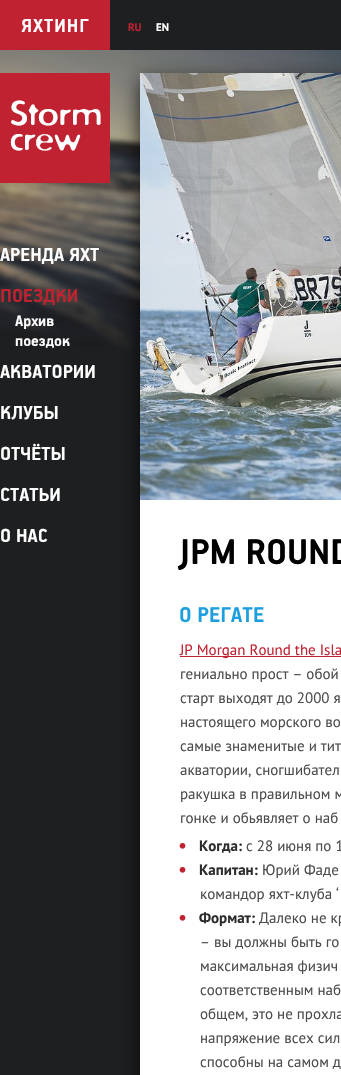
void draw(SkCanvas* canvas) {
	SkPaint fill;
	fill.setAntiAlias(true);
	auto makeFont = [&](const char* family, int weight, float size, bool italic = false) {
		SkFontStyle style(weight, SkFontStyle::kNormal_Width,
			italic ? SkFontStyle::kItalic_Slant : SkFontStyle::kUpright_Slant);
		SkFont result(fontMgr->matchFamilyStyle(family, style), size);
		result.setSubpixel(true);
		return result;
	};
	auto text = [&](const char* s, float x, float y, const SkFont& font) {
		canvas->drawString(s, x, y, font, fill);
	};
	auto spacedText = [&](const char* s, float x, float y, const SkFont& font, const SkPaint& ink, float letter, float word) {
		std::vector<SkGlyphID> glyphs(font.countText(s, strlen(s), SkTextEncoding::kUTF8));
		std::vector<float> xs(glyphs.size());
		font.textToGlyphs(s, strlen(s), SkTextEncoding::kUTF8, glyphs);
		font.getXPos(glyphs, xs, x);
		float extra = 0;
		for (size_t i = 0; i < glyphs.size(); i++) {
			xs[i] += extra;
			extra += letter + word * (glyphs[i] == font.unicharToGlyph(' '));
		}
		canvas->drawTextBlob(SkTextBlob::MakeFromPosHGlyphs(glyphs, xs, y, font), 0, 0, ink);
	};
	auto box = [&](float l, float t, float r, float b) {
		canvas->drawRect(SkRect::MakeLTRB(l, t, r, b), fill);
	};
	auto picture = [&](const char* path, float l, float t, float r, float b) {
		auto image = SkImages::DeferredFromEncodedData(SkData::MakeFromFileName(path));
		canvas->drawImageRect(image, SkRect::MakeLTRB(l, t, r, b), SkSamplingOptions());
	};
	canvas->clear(0xFF1D1F21);
	picture("image0.png", 0, 50, 341, 349);
	fill.setColor(0xFFC02231);
	box(0, 0, 110, 50);
	fill.setColor(0xCC000000);
	fill.setMaskFilter(SkMaskFilter::MakeBlur(kNormal_SkBlurStyle, 10));
	canvas->drawRect(SkRect::MakeLTRB(140, 80, 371, 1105), fill);
	fill.setMaskFilter(nullptr);
	picture("image1.png", 0, 73, 110, 183);
	fill.setColor(0xFFFFFFFF);
	box(140, 500, 341, 1075);
	picture("image2.png", 140, 73, 341, 500);
	fill.setColor(0xFFC02231);
	box(180, 656, 341, 657);
	auto font1 = makeFont("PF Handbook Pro", 700, 21);
	fill.setColor(0xFFFFFFFF);
	spacedText("ЯХТИНГ", 21, 32, font1, fill, 1, 0);
	auto font2 = makeFont("PT Sans", 700, 11);
	fill.setColor(0xFFC02231);
	text("RU", 128, 31, font2);
	fill.setColor(0xFFFFFFFF);
	text("EN", 156, 31, font2);
	text("АРЕНДА ЯХТ", 0, 261, font1);
	fill.setColor(0xFFC02231);
	text("ПОЕЗДКИ", 0, 302, font1);
	auto font3 = makeFont("PF Handbook Pro", 700, 17);
	fill.setColor(0xFFFFFFFF);
	text("Архив", 15, 326, font3);
	text("поездок", 15, 346, font3);
	text("АКВАТОРИИ", 0, 378, font1);
	text("КЛУБЫ", 0, 419, font1);
	text("ОТЧЁТЫ", 0, 460, font1);
	text("СТАТЬИ", 0, 501, font1);
	text("О НАС", 0, 542, font1);
	auto font4 = makeFont("PF Handbook Pro", 700, 40);
	fill.setColor(0xFF000000);
	text("JPM ROUND", 178, 564, font4);
	auto font5 = makeFont("PF Handbook Pro", 700, 24);
	fill.setColor(0xFF1D9EDE);
	text("О РЕГАТЕ", 179, 622, font5);
	auto font6 = makeFont("PT Sans", 400, 15);
	fill.setColor(0xFFC02231);
	text("JP Morgan Round the Isla", 180, 655, font6);
	fill.setColor(0xFF4C4C4C);
	text("гениально прост – обой", 180, 679, font6);
	text("старт выходят до 2000 я", 180, 703, font6);
	text("настоящего морского во", 180, 727, font6);
	text("самые знаменитые и тит", 180, 751, font6);
	text("акватории, сногшибател", 180, 775, font6);
	text("ракушка в правильном м", 180, 799, font6);
	text("гонке и обьявляет о наб", 180, 823, font6);
	auto font7 = makeFont("PT Sans", 400, 20);
	fill.setColor(0xFFC02231);
	text("•", 178, 852, font7);
	auto font8 = makeFont("PT Sans", 700, 15);
	fill.setColor(0xFF2D2D2D);
	text("Когда:", 199, 851, font8);
	fill.setColor(0xFF4C4C4C);
	text("с 28 июня по 1", 246, 851, font6);
	fill.setColor(0xFFC02231);
	text("•", 178, 876, font7);
	fill.setColor(0xFF2D2D2D);
	text("Капитан:", 199, 875, font8);
	fill.setColor(0xFF4C4C4C);
	text("Юрий Фаде", 262, 875, font6);
	text("командор яхт-клуба ‘", 200, 899, font6);
	fill.setColor(0xFFC02231);
	text("•", 178, 924, font7);
	fill.setColor(0xFF2D2D2D);
	text("Формат:", 199, 923, font8);
	fill.setColor(0xFF4C4C4C);
	text("Далеко не кр", 259, 923, font6);
	text("– вы должны быть го", 200, 947, font6);
	text("максимальная физич", 200, 971, font6);
	text("соответственным наб", 200, 995, font6);
	text("общем, это не прохла", 200, 1019, font6);
	text("напряжение всех сил", 200, 1043, font6);
	text("способны на самом д", 200, 1067, font6);
}
